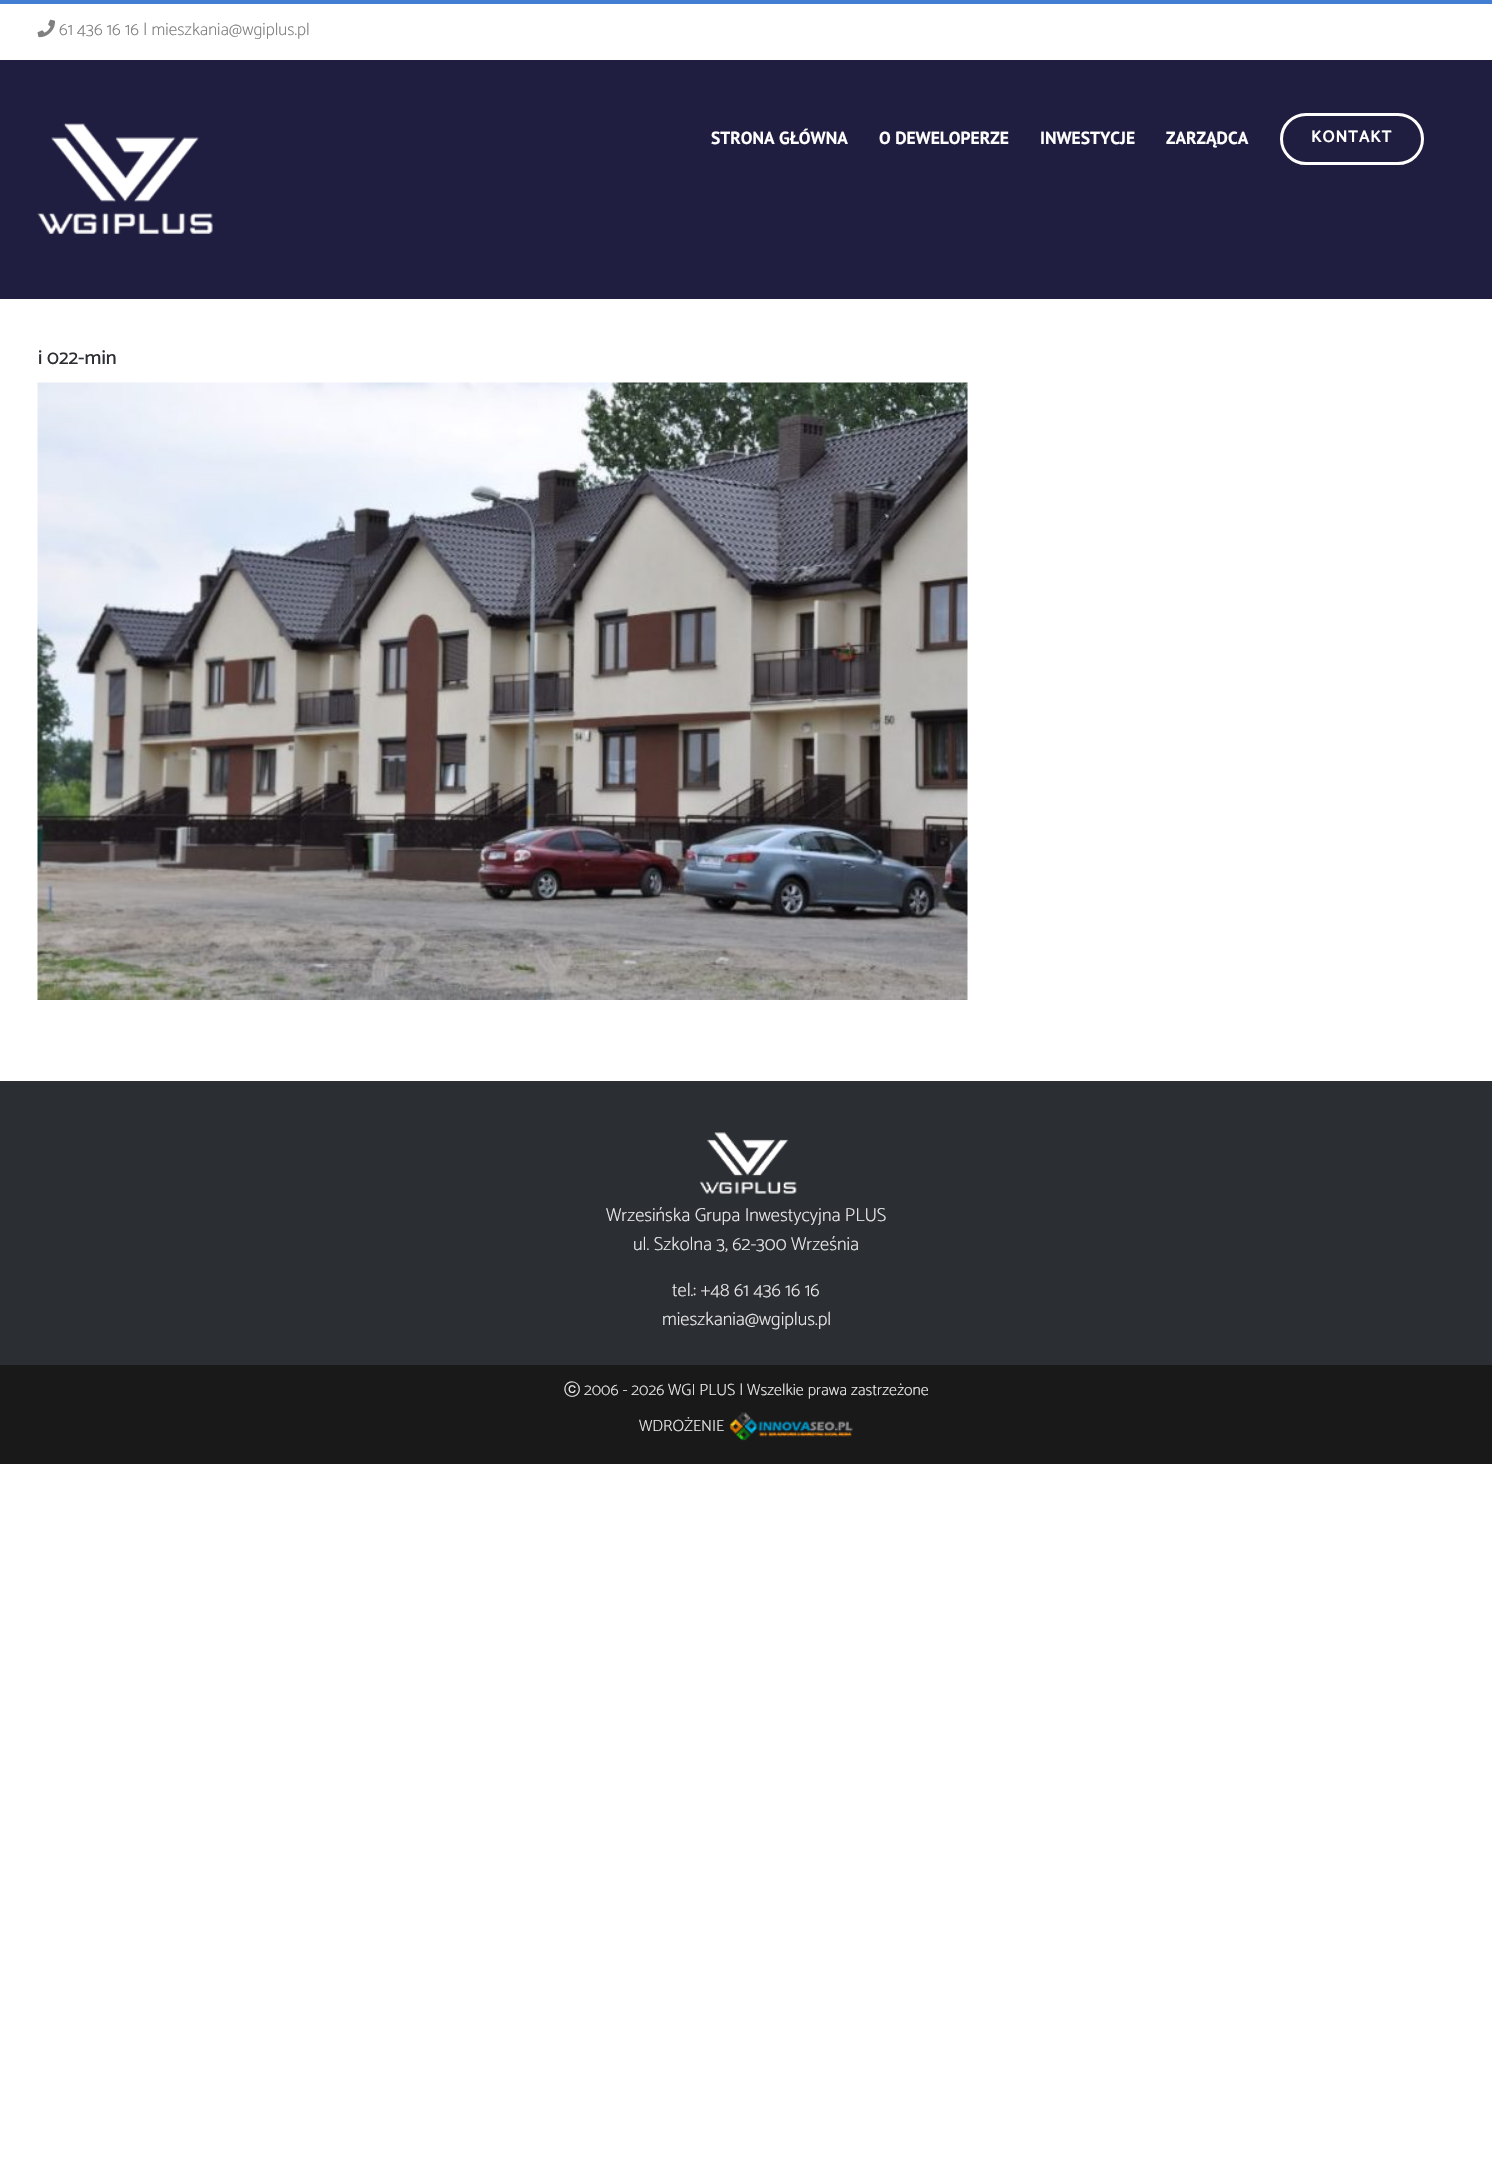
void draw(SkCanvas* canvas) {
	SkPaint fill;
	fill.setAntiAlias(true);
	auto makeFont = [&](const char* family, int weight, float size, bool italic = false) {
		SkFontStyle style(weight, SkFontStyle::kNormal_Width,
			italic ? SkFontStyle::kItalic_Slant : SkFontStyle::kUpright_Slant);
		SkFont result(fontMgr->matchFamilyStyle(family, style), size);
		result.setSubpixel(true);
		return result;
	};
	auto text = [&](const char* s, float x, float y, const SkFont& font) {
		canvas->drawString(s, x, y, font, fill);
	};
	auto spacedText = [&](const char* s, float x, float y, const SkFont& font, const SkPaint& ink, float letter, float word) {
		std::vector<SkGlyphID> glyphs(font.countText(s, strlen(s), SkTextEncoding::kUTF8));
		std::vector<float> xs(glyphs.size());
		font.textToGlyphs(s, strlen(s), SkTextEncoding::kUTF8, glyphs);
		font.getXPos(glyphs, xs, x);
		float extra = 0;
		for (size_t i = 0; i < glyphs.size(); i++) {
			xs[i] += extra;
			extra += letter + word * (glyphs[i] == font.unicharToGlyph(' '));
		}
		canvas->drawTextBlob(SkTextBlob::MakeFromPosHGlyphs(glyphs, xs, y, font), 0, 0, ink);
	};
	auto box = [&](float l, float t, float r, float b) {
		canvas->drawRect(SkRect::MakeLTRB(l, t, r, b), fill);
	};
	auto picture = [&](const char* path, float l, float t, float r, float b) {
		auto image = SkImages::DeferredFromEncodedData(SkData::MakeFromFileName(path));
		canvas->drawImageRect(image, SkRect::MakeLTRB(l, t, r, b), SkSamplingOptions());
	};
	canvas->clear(0xFFFFFFFF);
	fill.setColor(0xFF427ED1);
	box(0, 0, 1492, 4);
	picture("image0.png", 37, 19, 55, 38);
	fill.setColor(0xFF201E40);
	box(0, 60, 1492, 299);
	picture("image1.png", 37, 123, 213, 234);
	fill.setStyle(SkPaint::kStroke_Style);
	fill.setStrokeWidth(3);
	fill.setColor(0xFFFFFFFF);
	canvas->drawRoundRect(SkRect::MakeLTRB(1281.5f, 114.5f, 1422.5f, 163.5f), 24.5f, 24.5f, fill);
	picture("image2.png", 37, 382, 968, 1000);
	fill.setStyle(SkPaint::kFill_Style);
	fill.setColor(0xFF2B2E32);
	box(0, 1081, 1492, 1365);
	picture("image3.png", 699, 1132, 797, 1194);
	fill.setColor(0xFF191919);
	box(0, 1365, 1492, 1464);
	picture("image4.png", 729, 1412, 853, 1441);
	auto font1 = makeFont("Catamaran", 200, 17.5f);
	fill.setColor(0xFF808080);
	text("61 436 16 16 | mieszkania@wgiplus.pl", 59, 35, font1);
	auto font2 = makeFont("PT Sans", 700, 17.5f);
	fill.setColor(0xFFFFFFFF);
	text("STRONA GŁÓWNA", 711, 144, font2);
	text("O DEWELOPERZE", 879, 144, font2);
	text("INWESTYCJE", 1040, 144, font2);
	text("ZARZĄDCA", 1166, 144, font2);
	auto font3 = makeFont("Catamaran", 700, 16.25f);
	spacedText("KONTAKT", 1311, 142, font3, fill, 1.25f, 0);
	auto font4 = makeFont("Catamaran", 500, 20);
	fill.setColor(0xFF2B2E32);
	text("i 022-min", 38, 364, font4);
	auto font5 = makeFont("Catamaran", 200, 18.75f);
	fill.setColor(0xFFEAEAEA);
	text("Wrzesińska Grupa Inwestycyjna PLUS", 606, 1221, font5);
	text("ul. Szkolna 3, 62-300 Września", 633, 1250, font5);
	text("tel.: +48 61 436 16 16", 672, 1296, font5);
	text("mieszkania@wgiplus.pl", 662, 1325, font5);
	auto font6 = makeFont("WenQuanYi Zen Hei", 500, 16.25f);
	text("ⓒ", 564, 1395, font6);
	auto font7 = makeFont("Catamaran", 200, 16.25f);
	text("2006 - 2026 WGI PLUS | Wszelkie prawa zastrzeżone", 584, 1395, font7);
	text("WDROŻENIE", 639, 1431, font7);
}
